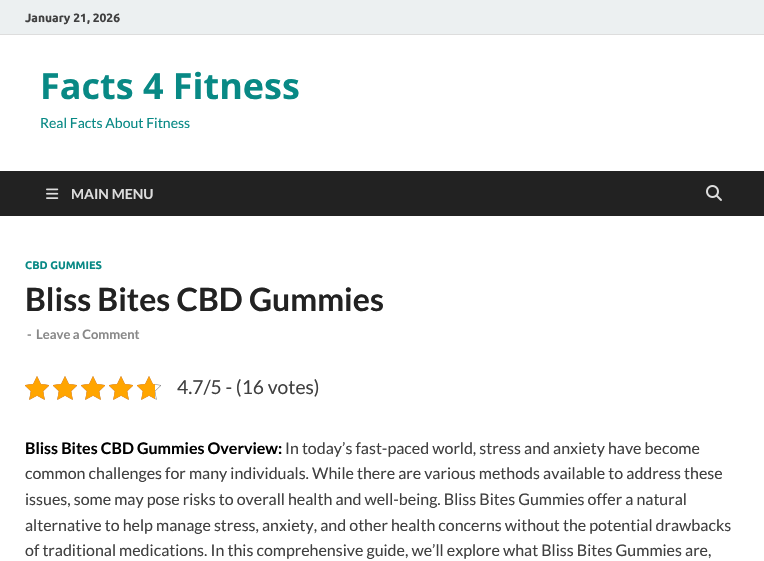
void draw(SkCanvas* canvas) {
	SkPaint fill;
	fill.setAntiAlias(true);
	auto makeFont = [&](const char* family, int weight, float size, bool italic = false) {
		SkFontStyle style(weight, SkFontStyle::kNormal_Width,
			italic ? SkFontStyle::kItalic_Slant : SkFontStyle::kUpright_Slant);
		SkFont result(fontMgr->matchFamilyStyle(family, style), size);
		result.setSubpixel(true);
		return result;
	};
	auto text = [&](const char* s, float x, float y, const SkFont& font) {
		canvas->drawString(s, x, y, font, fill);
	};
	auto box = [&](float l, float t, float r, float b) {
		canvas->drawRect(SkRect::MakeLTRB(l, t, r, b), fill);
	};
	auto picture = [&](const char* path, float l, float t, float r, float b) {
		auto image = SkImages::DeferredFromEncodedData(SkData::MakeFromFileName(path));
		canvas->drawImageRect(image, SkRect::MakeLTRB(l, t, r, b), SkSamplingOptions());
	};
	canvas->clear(0xFFFFFFFF);
	fill.setColor(0xFFECF0F1);
	box(0, 0, 764, 34);
	fill.setColor(0xFFDDDDDD);
	box(0, 34, 764, 35);
	fill.setColor(0xFF222222);
	box(0, 171, 764, 216);
	picture("image0.png", 46, 188, 59, 199);
	picture("image1.png", 706, 185, 722, 201);
	picture("image2.png", 25, 376, 49, 400);
	picture("image2.png", 53, 376, 77, 400);
	picture("image2.png", 81, 376, 105, 400);
	picture("image2.png", 109, 376, 133, 400);
	picture("image2.png", 137, 376, 161, 400);
	picture("image3.png", 25, 376, 49, 400);
	picture("image3.png", 53, 376, 77, 400);
	picture("image3.png", 81, 376, 105, 400);
	picture("image3.png", 109, 376, 133, 400);
	picture("image4.png", 137, 376, 155, 400);
	auto font1 = makeFont("Ubuntu", 700, 12);
	fill.setColor(0xFF404040);
	text("January 21, 2026", 25, 22, font1);
	auto font2 = makeFont("Open Sans", 700, 36);
	fill.setColor(0xFF088985);
	text("Facts 4 Fitness", 40, 99, font2);
	auto font3 = makeFont("Lato", 400, 14);
	text("Real Facts About Fitness", 40, 128, font3);
	auto font4 = makeFont("Lato", 700, 14);
	fill.setColor(0xFFDDDDDD);
	text("MAIN MENU", 71, 199, font4);
	auto font5 = makeFont("Ubuntu", 700, 11);
	fill.setColor(0xFF088985);
	text("CBD GUMMIES", 25, 269, font5);
	auto font6 = makeFont("Lato", 700, 32);
	fill.setColor(0xFF222222);
	text("Bliss Bites CBD Gummies", 25, 311, font6);
	auto font7 = makeFont("Lato", 700, 13);
	fill.setColor(0xFF888888);
	text("-", 27, 339, font7);
	text("Leave a Comment", 36, 339, font7);
	auto font8 = makeFont("Lato", 400, 19.25f);
	fill.setColor(0xFF404040);
	text("4.7/5 - (16 votes)", 177, 394, font8);
	auto font9 = makeFont("Lato", 700, 16);
	fill.setColor(0xFF000000);
	text("Bliss Bites CBD Gummies Overview:", 25, 454, font9);
	auto font10 = makeFont("Lato", 400, 16);
	fill.setColor(0xFF404040);
	text("In today’s fast-paced world, stress and anxiety have become", 285, 454, font10);
	text("common challenges for many individuals. While there are various methods available to address these", 25, 479, font10);
	text("issues, some may pose risks to overall health and well-being. Bliss Bites Gummies offer a natural", 25, 505, font10);
	text("alternative to help manage stress, anxiety, and other health concerns without the potential drawbacks", 25, 531, font10);
	text("of traditional medications. In this comprehensive guide, we’ll explore what Bliss Bites Gummies are,", 25, 556, font10);
}
